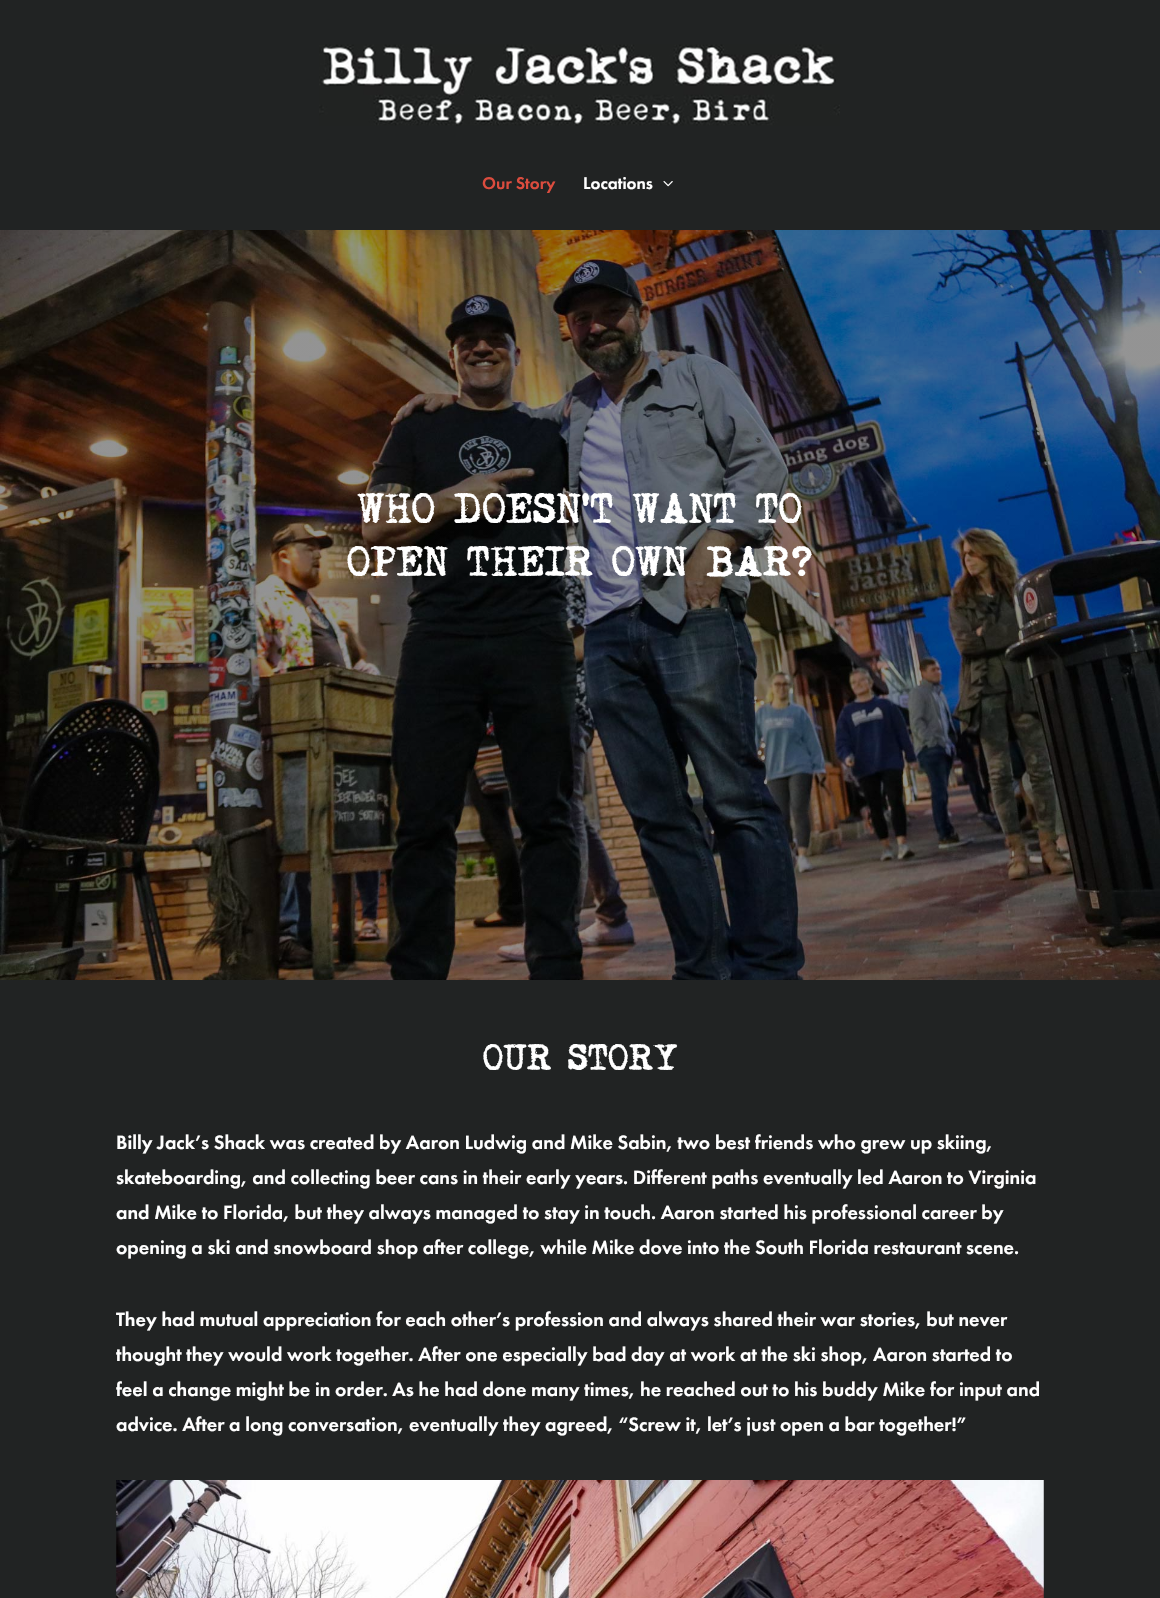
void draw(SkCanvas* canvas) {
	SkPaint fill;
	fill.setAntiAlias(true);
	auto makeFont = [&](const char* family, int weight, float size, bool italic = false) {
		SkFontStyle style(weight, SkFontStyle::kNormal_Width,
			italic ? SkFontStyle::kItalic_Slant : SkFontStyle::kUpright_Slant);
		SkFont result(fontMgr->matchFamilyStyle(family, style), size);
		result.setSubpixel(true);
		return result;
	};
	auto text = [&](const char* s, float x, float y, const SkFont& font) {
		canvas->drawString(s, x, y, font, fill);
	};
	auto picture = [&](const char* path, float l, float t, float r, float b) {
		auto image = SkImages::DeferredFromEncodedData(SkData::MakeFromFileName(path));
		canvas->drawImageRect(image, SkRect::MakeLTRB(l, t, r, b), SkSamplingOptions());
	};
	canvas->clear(0xFF212323);
	picture("image0.png", 319, 44, 840, 126);
	picture("image1.png", 663, 181, 673, 187);
	picture("image2.png", 0, 230, 1160, 980);
	picture("image3.png", 116, 1480, 1044, 1598);
	auto font1 = makeFont("Futura PT", 500, 17.5f);
	fill.setColor(0xFFDC4C3E);
	text("Our Story", 482, 189, font1);
	fill.setColor(0xFFFFFFFF);
	text("Locations", 583, 189, font1);
	auto font2 = makeFont("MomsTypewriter", 400, 37.5f);
	text("WHO DOESN’T WANT TO", 357, 523, font2);
	text("OPEN THEIR OWN BAR?", 347, 576, font2);
	auto font3 = makeFont("MomsTypewriter", 400, 32.5f);
	text("OUR STORY", 483, 1070, font3);
	auto font4 = makeFont("Futura PT", 500, 20);
	text("Billy Jack’s Shack was created by Aaron Ludwig and Mike Sabin, two best friends who grew up skiing,", 116, 1149, font4);
	text("skateboarding, and collecting beer cans in their early years. Different paths eventually led Aaron to Virginia", 116, 1184, font4);
	text("and Mike to Florida, but they always managed to stay in touch. Aaron started his professional career by", 116, 1219, font4);
	text("opening a ski and snowboard shop after college, while Mike dove into the South Florida restaurant scene.", 116, 1254, font4);
	text("They had mutual appreciation for each other’s profession and always shared their war stories, but never", 116, 1326, font4);
	text("thought they would work together. After one especially bad day at work at the ski shop, Aaron started to", 116, 1361, font4);
	text("feel a change might be in order. As he had done many times, he reached out to his buddy Mike for input and", 116, 1396, font4);
	text("advice. After a long conversation, eventually they agreed, “Screw it, let’s just open a bar together!”", 116, 1431, font4);
}
